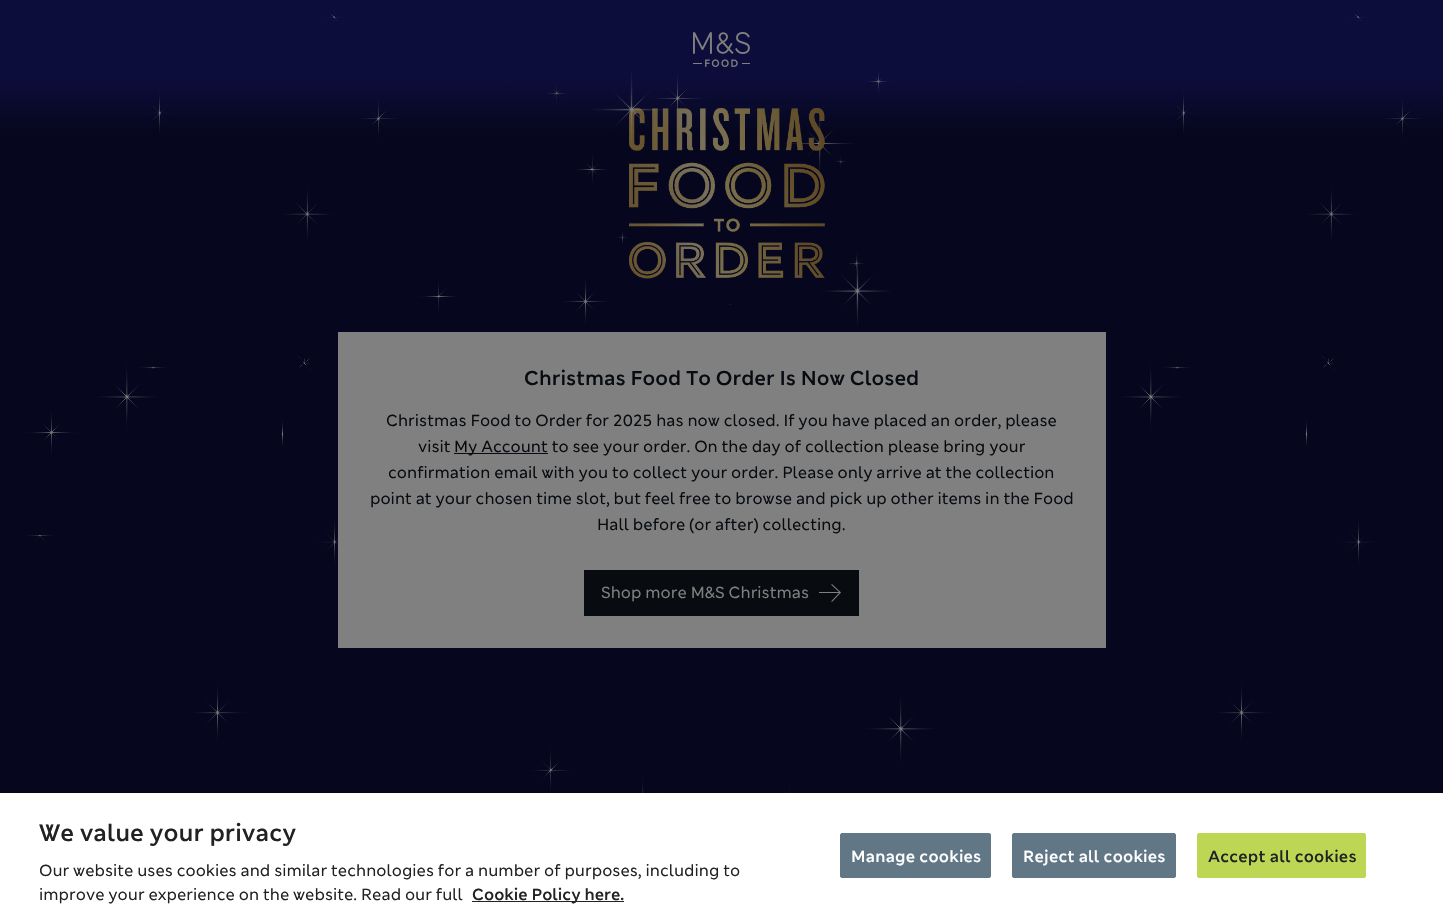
void draw(SkCanvas* canvas) {
	SkPaint fill;
	fill.setAntiAlias(true);
	auto makeFont = [&](const char* family, int weight, float size, bool italic = false) {
		SkFontStyle style(weight, SkFontStyle::kNormal_Width,
			italic ? SkFontStyle::kItalic_Slant : SkFontStyle::kUpright_Slant);
		SkFont result(fontMgr->matchFamilyStyle(family, style), size);
		result.setSubpixel(true);
		return result;
	};
	auto text = [&](const char* s, float x, float y, const SkFont& font) {
		canvas->drawString(s, x, y, font, fill);
	};
	auto spacedText = [&](const char* s, float x, float y, const SkFont& font, const SkPaint& ink, float letter, float word) {
		std::vector<SkGlyphID> glyphs(font.countText(s, strlen(s), SkTextEncoding::kUTF8));
		std::vector<float> xs(glyphs.size());
		font.textToGlyphs(s, strlen(s), SkTextEncoding::kUTF8, glyphs);
		font.getXPos(glyphs, xs, x);
		float extra = 0;
		for (size_t i = 0; i < glyphs.size(); i++) {
			xs[i] += extra;
			extra += letter + word * (glyphs[i] == font.unicharToGlyph(' '));
		}
		canvas->drawTextBlob(SkTextBlob::MakeFromPosHGlyphs(glyphs, xs, y, font), 0, 0, ink);
	};
	auto box = [&](float l, float t, float r, float b) {
		canvas->drawRect(SkRect::MakeLTRB(l, t, r, b), fill);
	};
	auto picture = [&](const char* path, float l, float t, float r, float b) {
		auto image = SkImages::DeferredFromEncodedData(SkData::MakeFromFileName(path));
		canvas->drawImageRect(image, SkRect::MakeLTRB(l, t, r, b), SkSamplingOptions());
	};
	canvas->clear(0xFFFFFFFF);
	picture("image0.png", 0, 0, 1443, 793);
	picture("image1.png", 693, 32, 750, 67);
	picture("image2.png", 546, 68, 891, 327);
	fill.setColor(0xFF808080);
	box(338, 332, 1106, 648);
	fill.setColor(0xFF080C10);
	box(454, 453, 548, 454);
	box(584, 570, 859, 616);
	picture("image3.png", 819, 584, 841, 602);
	fill.setColor(0x33000000);
	fill.setMaskFilter(SkMaskFilter::MakeBlur(kNormal_SkBlurStyle, 9));
	canvas->drawRect(SkRect::MakeLTRB(0, 793, 1443, 919), fill);
	fill.setMaskFilter(nullptr);
	fill.setColor(0xFFFFFFFF);
	box(0, 793, 1443, 919);
	fill.setColor(0xFF222222);
	box(472, 901, 624, 902);
	fill.setColor(0xFF627786);
	canvas->drawRoundRect(SkRect::MakeLTRB(840.5f, 833.5f, 990.5f, 877.5f), 1.5f, 1.5f, fill);
	fill.setStyle(SkPaint::kStroke_Style);
	fill.setStrokeWidth(1);
	canvas->drawRoundRect(SkRect::MakeLTRB(840.5f, 833.5f, 990.5f, 877.5f), 1.5f, 1.5f, fill);
	fill.setStyle(SkPaint::kFill_Style);
	canvas->drawRoundRect(SkRect::MakeLTRB(1012.5f, 833.5f, 1175.5f, 877.5f), 1.5f, 1.5f, fill);
	fill.setStyle(SkPaint::kStroke_Style);
	canvas->drawRoundRect(SkRect::MakeLTRB(1012.5f, 833.5f, 1175.5f, 877.5f), 1.5f, 1.5f, fill);
	fill.setStyle(SkPaint::kFill_Style);
	fill.setColor(0xFFBDD755);
	canvas->drawRoundRect(SkRect::MakeLTRB(1197.5f, 833.5f, 1365.5f, 877.5f), 1.5f, 1.5f, fill);
	fill.setStyle(SkPaint::kStroke_Style);
	canvas->drawRoundRect(SkRect::MakeLTRB(1197.5f, 833.5f, 1365.5f, 877.5f), 1.5f, 1.5f, fill);
	auto font1 = makeFont("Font", 600, 20);
	fill.setStyle(SkPaint::kFill_Style);
	fill.setColor(0xFF080C10);
	text("Christmas Food To Order Is Now Closed", 524, 385, font1);
	auto font2 = makeFont("Font", 400, 16);
	text("Christmas Food to Order for 2025 has now closed. If you have placed an order, please", 386, 426, font2);
	text("visit", 418, 452, font2);
	text("My Account to see your order. On the day of collection please bring your", 454, 452, font2);
	text("confirmation email with you to collect your order. Please only arrive at the collection", 388, 478, font2);
	text("point at your chosen time slot, but feel free to browse and pick up other items in the Food", 370, 504, font2);
	text("Hall before (or after) collecting.", 597, 530, font2);
	fill.setColor(0xFF808080);
	text("Shop more M&S Christmas", 601, 598, font2);
	auto font3 = makeFont("Font", 600, 23.6f);
	fill.setColor(0xFF222222);
	text("We value your privacy", 39, 841, font3);
	text("Our website uses cookies and similar technologies for a number of purposes, including to", 39, 876, font2);
	text("improve your experience on the website. Read our full", 39, 900, font2);
	auto font4 = makeFont("Font", 600, 16);
	text("Cookie Policy here.", 472, 900, font4);
	fill.setColor(0xFFFFFFFF);
	spacedText("Manage cookies", 851, 862, font4, fill, 0.2f, 0);
	spacedText("Reject all cookies", 1023, 862, font4, fill, 0.2f, 0);
	fill.setColor(0xFF222222);
	spacedText("Accept all cookies", 1208, 862, font4, fill, 0.2f, 0);
}
